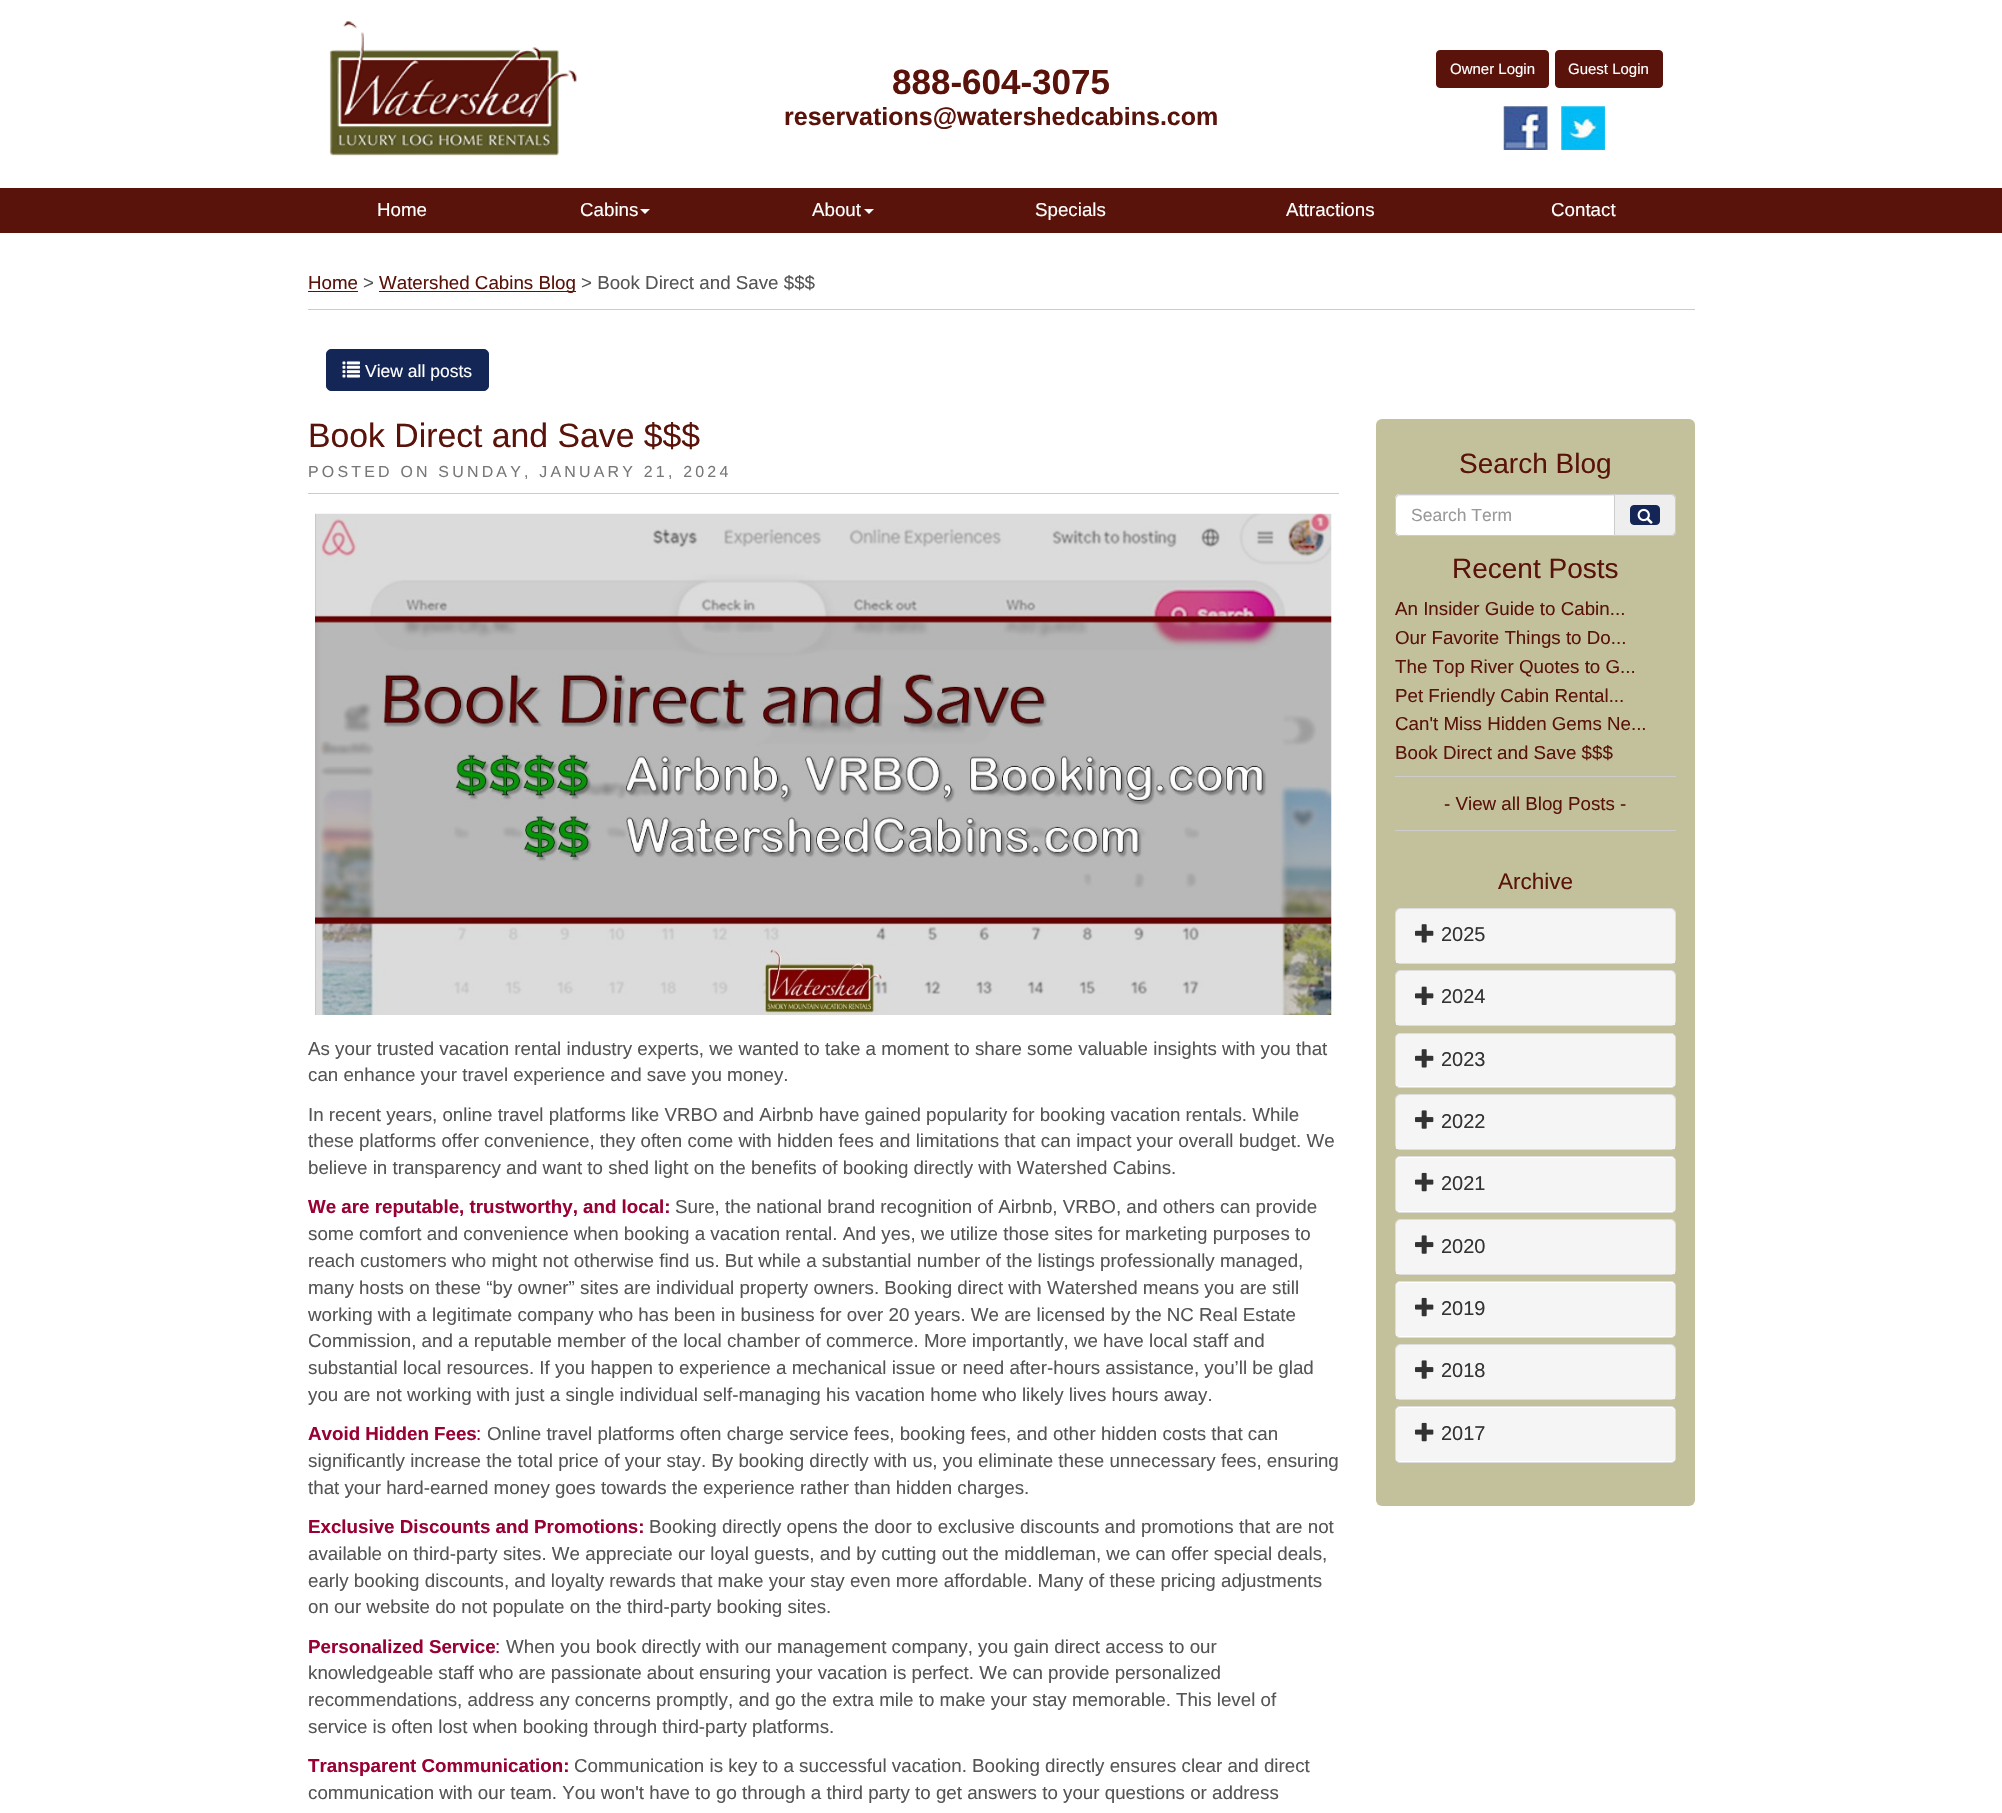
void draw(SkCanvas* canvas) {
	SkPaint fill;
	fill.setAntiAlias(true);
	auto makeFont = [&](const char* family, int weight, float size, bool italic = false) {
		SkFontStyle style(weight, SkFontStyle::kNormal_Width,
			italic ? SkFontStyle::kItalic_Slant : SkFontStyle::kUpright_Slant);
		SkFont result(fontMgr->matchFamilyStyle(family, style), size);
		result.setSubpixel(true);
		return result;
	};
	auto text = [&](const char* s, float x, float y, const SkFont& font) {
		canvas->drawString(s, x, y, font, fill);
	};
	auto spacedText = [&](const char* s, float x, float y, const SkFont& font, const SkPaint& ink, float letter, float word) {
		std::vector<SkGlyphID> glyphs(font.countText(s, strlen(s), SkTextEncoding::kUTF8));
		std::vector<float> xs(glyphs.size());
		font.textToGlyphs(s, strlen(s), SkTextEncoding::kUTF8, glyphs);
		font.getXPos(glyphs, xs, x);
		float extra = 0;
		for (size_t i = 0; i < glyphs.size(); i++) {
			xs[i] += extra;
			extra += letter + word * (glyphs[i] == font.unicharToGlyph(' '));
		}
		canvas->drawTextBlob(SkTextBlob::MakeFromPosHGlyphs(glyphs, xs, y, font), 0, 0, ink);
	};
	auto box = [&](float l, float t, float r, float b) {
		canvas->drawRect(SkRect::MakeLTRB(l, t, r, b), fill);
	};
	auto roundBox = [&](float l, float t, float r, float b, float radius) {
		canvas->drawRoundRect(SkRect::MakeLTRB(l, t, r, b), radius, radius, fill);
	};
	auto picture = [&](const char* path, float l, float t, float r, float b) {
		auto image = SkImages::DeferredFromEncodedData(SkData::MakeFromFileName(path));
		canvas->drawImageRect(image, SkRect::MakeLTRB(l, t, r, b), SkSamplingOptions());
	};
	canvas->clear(0xFFFFFFFF);
	picture("image0.png", 329, 21, 577, 156);
	fill.setColor(0xFF5A130A);
	canvas->drawRoundRect(SkRect::MakeLTRB(1436.5f, 50.5f, 1548.5f, 87.5f), 3.5f, 3.5f, fill);
	fill.setStyle(SkPaint::kStroke_Style);
	fill.setStrokeWidth(1);
	canvas->drawRoundRect(SkRect::MakeLTRB(1436.5f, 50.5f, 1548.5f, 87.5f), 3.5f, 3.5f, fill);
	fill.setStyle(SkPaint::kFill_Style);
	canvas->drawRoundRect(SkRect::MakeLTRB(1555.5f, 50.5f, 1662.5f, 87.5f), 3.5f, 3.5f, fill);
	fill.setStyle(SkPaint::kStroke_Style);
	canvas->drawRoundRect(SkRect::MakeLTRB(1555.5f, 50.5f, 1662.5f, 87.5f), 3.5f, 3.5f, fill);
	picture("image1.png", 1503, 106, 1548, 150);
	picture("image2.png", 1561, 106, 1605, 150);
	fill.setStyle(SkPaint::kFill_Style);
	box(0, 188, 2002, 233);
	fill.setColor(0xFFFFFFFF);
	canvas->drawPath(SkPathBuilder().moveTo(640, 209).lineTo(650, 209).lineTo(645, 214).close().detach(), fill);
	canvas->drawPath(SkPathBuilder().moveTo(864, 209).lineTo(874, 209).lineTo(869, 214).close().detach(), fill);
	fill.setColor(0xFF5A130A);
	box(308, 291, 358, 292);
	box(379, 291, 576, 292);
	fill.setColor(0xFFCCCCCC);
	box(308, 309, 1695, 310);
	fill.setColor(0xFF142656);
	canvas->drawRoundRect(SkRect::MakeLTRB(326.5f, 349.5f, 488.5f, 390.5f), 4.5f, 4.5f, fill);
	fill.setStyle(SkPaint::kStroke_Style);
	canvas->drawRoundRect(SkRect::MakeLTRB(326.5f, 349.5f, 488.5f, 390.5f), 4.5f, 4.5f, fill);
	picture("image3.png", 342, 361, 360, 378);
	fill.setStyle(SkPaint::kFill_Style);
	fill.setColor(0xFFCCCCCC);
	box(308, 493, 1339, 494);
	picture("image4.png", 315, 513, 1332, 1015);
	fill.setColor(0xFFC2C19C);
	roundBox(1376, 419, 1695, 1506, 6);
	fill.setColor(0xFFFFFFFF);
	canvas->drawPath(SkPathBuilder().moveTo(1400, 494).lineTo(1615, 494).lineTo(1615, 536).lineTo(1400, 536).cubicTo(1397, 536, 1395, 534, 1395, 531).lineTo(1395, 499).cubicTo(1395, 496, 1397, 494, 1400, 494).close().detach(), fill);
	fill.setColor(0xFFECECEC);
	canvas->drawPath(SkPathBuilder().moveTo(1400, 496).lineTo(1614, 496).lineTo(1614, 495).lineTo(1400, 495).cubicTo(1397, 495, 1396, 497, 1396, 500).cubicTo(1396, 498, 1398, 496, 1400, 496).close().detach(), fill);
	fill.setStyle(SkPaint::kStroke_Style);
	fill.setColor(0xFFCCCCCC);
	canvas->drawPath(SkPathBuilder().moveTo(1400, 494.5f).lineTo(1614.5f, 494.5f).lineTo(1614.5f, 535.5f).lineTo(1400, 535.5f).cubicTo(1397.5f, 535.5f, 1395.5f, 533.5f, 1395.5f, 531).lineTo(1395.5f, 499).cubicTo(1395.5f, 496.5f, 1397.5f, 494.5f, 1400, 494.5f).close().detach(), fill);
	fill.setStyle(SkPaint::kFill_Style);
	fill.setColor(0xFFEEEEEE);
	canvas->drawPath(SkPathBuilder().moveTo(1615, 494).lineTo(1671, 494).cubicTo(1674, 494, 1676, 496, 1676, 499).lineTo(1676, 531).cubicTo(1676, 534, 1674, 536, 1671, 536).lineTo(1615, 536).close().detach(), fill);
	fill.setColor(0xFFCCCCCC);
	canvas->drawPath(SkPathBuilder(SkPathFillType::kEvenOdd).moveTo(1615, 494).lineTo(1671, 494).cubicTo(1674, 494, 1676, 496, 1676, 499).lineTo(1676, 531).cubicTo(1676, 534, 1674, 536, 1671, 536).lineTo(1615, 536).close().moveTo(1615, 495).lineTo(1671, 495).cubicTo(1673, 495, 1675, 497, 1675, 499).lineTo(1675, 531).cubicTo(1675, 533, 1673, 535, 1671, 535).lineTo(1615, 535).close().detach(), fill);
	fill.setColor(0xFF142656);
	canvas->drawRoundRect(SkRect::MakeLTRB(1630.5f, 505.5f, 1659.5f, 524.5f), 3.5f, 3.5f, fill);
	fill.setStyle(SkPaint::kStroke_Style);
	canvas->drawRoundRect(SkRect::MakeLTRB(1630.5f, 505.5f, 1659.5f, 524.5f), 3.5f, 3.5f, fill);
	picture("image5.png", 1637, 508, 1653, 524);
	fill.setStyle(SkPaint::kFill_Style);
	fill.setColor(0xFFCCCCCC);
	box(1395, 776, 1676, 777);
	box(1395, 830, 1676, 831);
	fill.setStyle(SkPaint::kStroke_Style);
	fill.setColor(0xFFDDDDDD);
	canvas->drawRoundRect(SkRect::MakeLTRB(1395.5f, 908.5f, 1675.5f, 963.5f), 4.5f, 4.5f, fill);
	fill.setStyle(SkPaint::kFill_Style);
	fill.setColor(0xFFF5F5F5);
	canvas->drawPath(SkPathBuilder().moveTo(1400, 909).lineTo(1671, 909).cubicTo(1673, 909, 1675, 911, 1675, 913).lineTo(1675, 963).lineTo(1396, 963).lineTo(1396, 913).cubicTo(1396, 911, 1398, 909, 1400, 909).close().detach(), fill);
	picture("image6.png", 1415, 924, 1434, 943);
	fill.setStyle(SkPaint::kStroke_Style);
	fill.setColor(0xFFDDDDDD);
	canvas->drawRoundRect(SkRect::MakeLTRB(1395.5f, 970.5f, 1675.5f, 1025.5f), 4.5f, 4.5f, fill);
	fill.setStyle(SkPaint::kFill_Style);
	fill.setColor(0xFFF5F5F5);
	canvas->drawPath(SkPathBuilder().moveTo(1400, 971).lineTo(1671, 971).cubicTo(1673, 971, 1675, 973, 1675, 975).lineTo(1675, 1025).lineTo(1396, 1025).lineTo(1396, 975).cubicTo(1396, 973, 1398, 971, 1400, 971).close().detach(), fill);
	picture("image7.png", 1415, 986, 1434, 1005);
	fill.setColor(0xFFFFFFFF);
	canvas->drawRoundRect(SkRect::MakeLTRB(1395.5f, 1033.5f, 1675.5f, 1087.5f), 4.5f, 4.5f, fill);
	fill.setStyle(SkPaint::kStroke_Style);
	fill.setColor(0xFFDDDDDD);
	canvas->drawRoundRect(SkRect::MakeLTRB(1395.5f, 1033.5f, 1675.5f, 1087.5f), 4.5f, 4.5f, fill);
	fill.setStyle(SkPaint::kFill_Style);
	fill.setColor(0xFFF5F5F5);
	canvas->drawPath(SkPathBuilder().moveTo(1400, 1034).lineTo(1671, 1034).cubicTo(1673, 1034, 1675, 1036, 1675, 1038).lineTo(1675, 1086).lineTo(1396, 1086).lineTo(1396, 1038).cubicTo(1396, 1036, 1398, 1034, 1400, 1034).close().detach(), fill);
	picture("image6.png", 1415, 1049, 1434, 1068);
	fill.setStyle(SkPaint::kStroke_Style);
	fill.setColor(0xFFDDDDDD);
	canvas->drawRoundRect(SkRect::MakeLTRB(1395.5f, 1094.5f, 1675.5f, 1149.5f), 4.5f, 4.5f, fill);
	fill.setStyle(SkPaint::kFill_Style);
	fill.setColor(0xFFF5F5F5);
	canvas->drawPath(SkPathBuilder().moveTo(1400, 1095).lineTo(1671, 1095).cubicTo(1673, 1095, 1675, 1097, 1675, 1099).lineTo(1675, 1149).lineTo(1396, 1149).lineTo(1396, 1099).cubicTo(1396, 1097, 1398, 1095, 1400, 1095).close().detach(), fill);
	picture("image8.png", 1415, 1110, 1434, 1129);
	fill.setColor(0xFFFFFFFF);
	canvas->drawRoundRect(SkRect::MakeLTRB(1395.5f, 1156.5f, 1675.5f, 1212.5f), 4.5f, 4.5f, fill);
	fill.setStyle(SkPaint::kStroke_Style);
	fill.setColor(0xFFDDDDDD);
	canvas->drawRoundRect(SkRect::MakeLTRB(1395.5f, 1156.5f, 1675.5f, 1212.5f), 4.5f, 4.5f, fill);
	fill.setStyle(SkPaint::kFill_Style);
	fill.setColor(0xFFF5F5F5);
	canvas->drawPath(SkPathBuilder().moveTo(1400, 1158).lineTo(1671, 1158).cubicTo(1673, 1158, 1675, 1160, 1675, 1162).lineTo(1675, 1211).lineTo(1396, 1211).lineTo(1396, 1162).cubicTo(1396, 1160, 1398, 1158, 1400, 1158).close().detach(), fill);
	picture("image9.png", 1415, 1172, 1434, 1192);
	fill.setStyle(SkPaint::kStroke_Style);
	fill.setColor(0xFFDDDDDD);
	canvas->drawRoundRect(SkRect::MakeLTRB(1395.5f, 1219.5f, 1675.5f, 1274.5f), 4.5f, 4.5f, fill);
	fill.setStyle(SkPaint::kFill_Style);
	fill.setColor(0xFFF5F5F5);
	canvas->drawPath(SkPathBuilder().moveTo(1400, 1220).lineTo(1671, 1220).cubicTo(1673, 1220, 1675, 1222, 1675, 1224).lineTo(1675, 1274).lineTo(1396, 1274).lineTo(1396, 1224).cubicTo(1396, 1222, 1398, 1220, 1400, 1220).close().detach(), fill);
	picture("image8.png", 1415, 1235, 1434, 1254);
	fill.setColor(0xFFFFFFFF);
	canvas->drawRoundRect(SkRect::MakeLTRB(1395.5f, 1281.5f, 1675.5f, 1337.5f), 4.5f, 4.5f, fill);
	fill.setStyle(SkPaint::kStroke_Style);
	fill.setColor(0xFFDDDDDD);
	canvas->drawRoundRect(SkRect::MakeLTRB(1395.5f, 1281.5f, 1675.5f, 1337.5f), 4.5f, 4.5f, fill);
	fill.setStyle(SkPaint::kFill_Style);
	fill.setColor(0xFFF5F5F5);
	canvas->drawPath(SkPathBuilder().moveTo(1400, 1283).lineTo(1671, 1283).cubicTo(1673, 1283, 1675, 1285, 1675, 1287).lineTo(1675, 1336).lineTo(1396, 1336).lineTo(1396, 1287).cubicTo(1396, 1285, 1398, 1283, 1400, 1283).close().detach(), fill);
	picture("image9.png", 1415, 1297, 1434, 1317);
	fill.setStyle(SkPaint::kStroke_Style);
	fill.setColor(0xFFDDDDDD);
	canvas->drawRoundRect(SkRect::MakeLTRB(1395.5f, 1344.5f, 1675.5f, 1399.5f), 4.5f, 4.5f, fill);
	fill.setStyle(SkPaint::kFill_Style);
	fill.setColor(0xFFF5F5F5);
	canvas->drawPath(SkPathBuilder().moveTo(1400, 1345).lineTo(1671, 1345).cubicTo(1673, 1345, 1675, 1347, 1675, 1349).lineTo(1675, 1399).lineTo(1396, 1399).lineTo(1396, 1349).cubicTo(1396, 1347, 1398, 1345, 1400, 1345).close().detach(), fill);
	picture("image8.png", 1415, 1360, 1434, 1379);
	fill.setColor(0xFFFFFFFF);
	canvas->drawRoundRect(SkRect::MakeLTRB(1395.5f, 1406.5f, 1675.5f, 1462.5f), 4.5f, 4.5f, fill);
	fill.setStyle(SkPaint::kStroke_Style);
	fill.setColor(0xFFDDDDDD);
	canvas->drawRoundRect(SkRect::MakeLTRB(1395.5f, 1406.5f, 1675.5f, 1462.5f), 4.5f, 4.5f, fill);
	fill.setStyle(SkPaint::kFill_Style);
	fill.setColor(0xFFF5F5F5);
	canvas->drawPath(SkPathBuilder().moveTo(1400, 1408).lineTo(1671, 1408).cubicTo(1673, 1408, 1675, 1410, 1675, 1412).lineTo(1675, 1461).lineTo(1396, 1461).lineTo(1396, 1412).cubicTo(1396, 1410, 1398, 1408, 1400, 1408).close().detach(), fill);
	picture("image9.png", 1415, 1422, 1434, 1442);
	auto font1 = makeFont("Liberation Sans", 700, 35);
	fill.setColor(0xFF5A130A);
	text("888-604-3075", 892, 94, font1);
	auto font2 = makeFont("Liberation Sans", 700, 25);
	text("reservations@watershedcabins.com", 784, 125, font2);
	auto font3 = makeFont("Liberation Sans", 400, 15);
	fill.setColor(0xFFFFFFFF);
	text("Owner Login", 1450, 74, font3);
	text("Guest Login", 1568, 74, font3);
	auto font4 = makeFont("Liberation Sans", 400, 18.75f);
	text("Home", 377, 216, font4);
	text("Cabins", 580, 216, font4);
	text("About", 812, 216, font4);
	text("Specials", 1035, 216, font4);
	text("Attractions", 1286, 216, font4);
	text("Contact", 1551, 216, font4);
	fill.setColor(0xFF5A130A);
	text("Home", 308, 289, font4);
	fill.setColor(0xFF555555);
	text(">", 363, 289, font4);
	fill.setColor(0xFF5A130A);
	text("Watershed Cabins Blog", 379, 289, font4);
	fill.setColor(0xFF555555);
	text("> Book Direct and Save $$$", 581, 289, font4);
	auto font5 = makeFont("Liberation Sans", 400, 17.5f);
	fill.setColor(0xFFFFFFFF);
	text("View all posts", 365, 377, font5);
	auto font6 = makeFont("Liberation Sans", 400, 33.75f);
	fill.setColor(0xFF5A130A);
	text("Book Direct and Save $$$", 308, 447, font6);
	auto font7 = makeFont("Liberation Sans", 400, 15.95f);
	fill.setColor(0xFF777777);
	spacedText("POSTED ON SUNDAY, JANUARY 21, 2024", 308, 477, font7, fill, 3.2f, 0);
	fill.setColor(0xFF555555);
	text("As your trusted vacation rental industry experts, we wanted to take a moment to share some valuable insights with you that", 308, 1055, font4);
	text("can enhance your travel experience and save you money.", 308, 1081, font4);
	text("In recent years, online travel platforms like VRBO and Airbnb have gained popularity for booking vacation rentals. While", 308, 1121, font4);
	text("these platforms offer convenience, they often come with hidden fees and limitations that can impact your overall budget. We", 308, 1147, font4);
	text("believe in transparency and want to shed light on the benefits of booking directly with Watershed Cabins.", 308, 1174, font4);
	auto font8 = makeFont("Liberation Sans", 700, 18.75f);
	fill.setColor(0xFF990033);
	text("We are reputable, trustworthy, and local:", 308, 1213, font8);
	fill.setColor(0xFF555555);
	text("Sure, the national brand recognition of Airbnb, VRBO, and others can provide", 675, 1213, font4);
	text("some comfort and convenience when booking a vacation rental. And yes, we utilize those sites for marketing purposes to", 308, 1240, font4);
	text("reach customers who might not otherwise find us. But while a substantial number of the listings professionally managed,", 308, 1267, font4);
	text("many hosts on these “by owner” sites are individual property owners. Booking direct with Watershed means you are still", 308, 1294, font4);
	text("working with a legitimate company who has been in business for over 20 years. We are licensed by the NC Real Estate", 308, 1321, font4);
	text("Commission, and a reputable member of the local chamber of commerce. More importantly, we have local staff and", 308, 1347, font4);
	text("substantial local resources. If you happen to experience a mechanical issue or need after-hours assistance, you’ll be glad", 308, 1374, font4);
	text("you are not working with just a single individual self-managing his vacation home who likely lives hours away.", 308, 1401, font4);
	fill.setColor(0xFF990033);
	text("Avoid Hidden Fees", 308, 1440, font8);
	text(":", 476, 1440, font4);
	fill.setColor(0xFF555555);
	text("Online travel platforms often charge service fees, booking fees, and other hidden costs that can", 487, 1440, font4);
	text("significantly increase the total price of your stay. By booking directly with us, you eliminate these unnecessary fees, ensuring", 308, 1467, font4);
	text("that your hard-earned money goes towards the experience rather than hidden charges.", 308, 1494, font4);
	fill.setColor(0xFF990033);
	text("Exclusive Discounts and Promotions:", 308, 1533, font8);
	fill.setColor(0xFF555555);
	text("Booking directly opens the door to exclusive discounts and promotions that are not", 649, 1533, font4);
	text("available on third-party sites. We appreciate our loyal guests, and by cutting out the middleman, we can offer special deals,", 308, 1560, font4);
	text("early booking discounts, and loyalty rewards that make your stay even more affordable. Many of these pricing adjustments", 308, 1587, font4);
	text("on our website do not populate on the third-party booking sites.", 308, 1613, font4);
	fill.setColor(0xFF990033);
	text("Personalized Service", 308, 1653, font8);
	text(":", 495, 1653, font4);
	fill.setColor(0xFF555555);
	text("When you book directly with our management company, you gain direct access to our", 506, 1653, font4);
	text("knowledgeable staff who are passionate about ensuring your vacation is perfect. We can provide personalized", 308, 1679, font4);
	text("recommendations, address any concerns promptly, and go the extra mile to make your stay memorable. This level of", 308, 1706, font4);
	text("service is often lost when booking through third-party platforms.", 308, 1733, font4);
	fill.setColor(0xFF990033);
	text("Transparent Communication:", 308, 1772, font8);
	fill.setColor(0xFF555555);
	text("Communication is key to a successful vacation. Booking directly ensures clear and direct", 574, 1772, font4);
	text("communication with our team. You won't have to go through a third party to get answers to your questions or address", 308, 1799, font4);
	auto font9 = makeFont("Liberation Sans", 400, 28);
	fill.setColor(0xFF5A130A);
	text("Search Blog", 1459, 473, font9);
	fill.setColor(0xFF999999);
	text("Search Term", 1411, 521, font5);
	fill.setColor(0xFF5A130A);
	text("Recent Posts", 1452, 578, font9);
	text("An Insider Guide to Cabin...", 1395, 615, font4);
	text("Our Favorite Things to Do...", 1395, 644, font4);
	text("The Top River Quotes to G...", 1395, 673, font4);
	text("Pet Friendly Cabin Rental...", 1395, 702, font4);
	text("Can't Miss Hidden Gems Ne...", 1395, 730, font4);
	text("Book Direct and Save $$$", 1395, 759, font4);
	text("- View all Blog Posts -", 1444, 810, font4);
	auto font10 = makeFont("Liberation Sans", 400, 22.5f);
	text("Archive", 1498, 889, font10);
	auto font11 = makeFont("Liberation Sans", 400, 20);
	fill.setColor(0xFF333333);
	text("2025", 1441, 941, font11);
	text("2024", 1441, 1003, font11);
	text("2023", 1441, 1066, font11);
	text("2022", 1441, 1128, font11);
	text("2021", 1441, 1190, font11);
	text("2020", 1441, 1253, font11);
	text("2019", 1441, 1315, font11);
	text("2018", 1441, 1377, font11);
	text("2017", 1441, 1440, font11);
}
